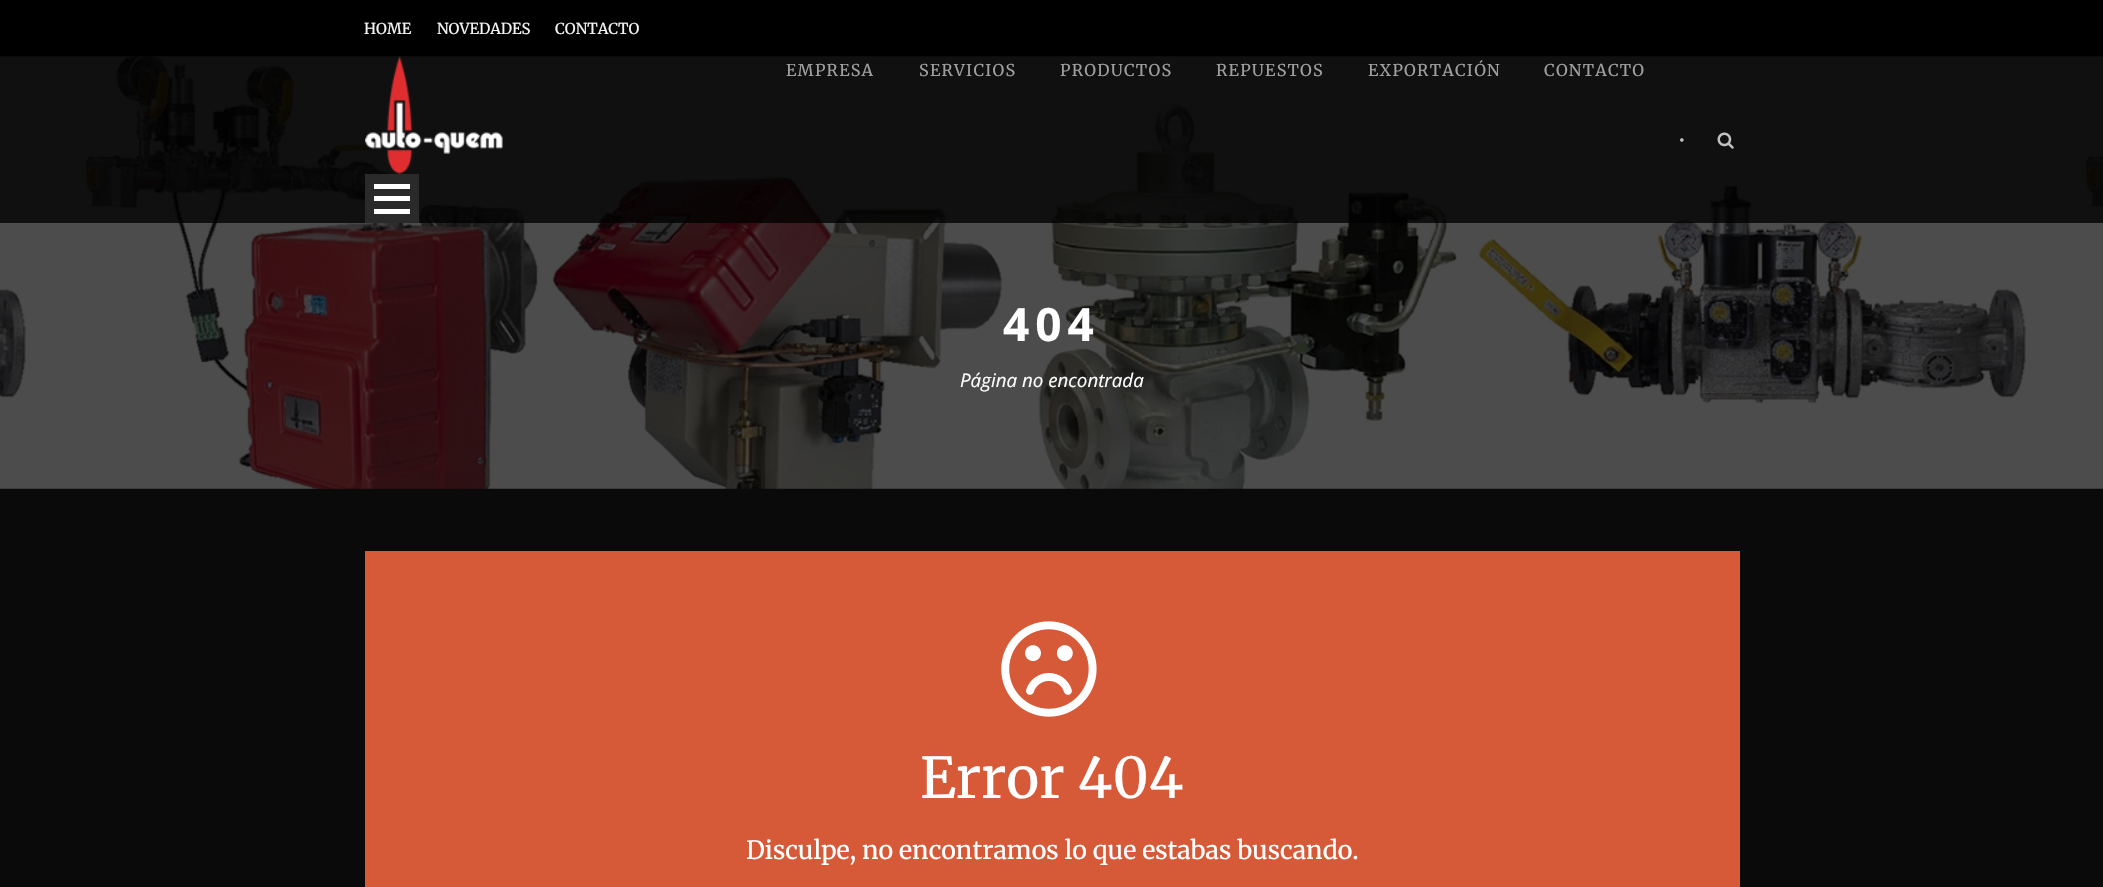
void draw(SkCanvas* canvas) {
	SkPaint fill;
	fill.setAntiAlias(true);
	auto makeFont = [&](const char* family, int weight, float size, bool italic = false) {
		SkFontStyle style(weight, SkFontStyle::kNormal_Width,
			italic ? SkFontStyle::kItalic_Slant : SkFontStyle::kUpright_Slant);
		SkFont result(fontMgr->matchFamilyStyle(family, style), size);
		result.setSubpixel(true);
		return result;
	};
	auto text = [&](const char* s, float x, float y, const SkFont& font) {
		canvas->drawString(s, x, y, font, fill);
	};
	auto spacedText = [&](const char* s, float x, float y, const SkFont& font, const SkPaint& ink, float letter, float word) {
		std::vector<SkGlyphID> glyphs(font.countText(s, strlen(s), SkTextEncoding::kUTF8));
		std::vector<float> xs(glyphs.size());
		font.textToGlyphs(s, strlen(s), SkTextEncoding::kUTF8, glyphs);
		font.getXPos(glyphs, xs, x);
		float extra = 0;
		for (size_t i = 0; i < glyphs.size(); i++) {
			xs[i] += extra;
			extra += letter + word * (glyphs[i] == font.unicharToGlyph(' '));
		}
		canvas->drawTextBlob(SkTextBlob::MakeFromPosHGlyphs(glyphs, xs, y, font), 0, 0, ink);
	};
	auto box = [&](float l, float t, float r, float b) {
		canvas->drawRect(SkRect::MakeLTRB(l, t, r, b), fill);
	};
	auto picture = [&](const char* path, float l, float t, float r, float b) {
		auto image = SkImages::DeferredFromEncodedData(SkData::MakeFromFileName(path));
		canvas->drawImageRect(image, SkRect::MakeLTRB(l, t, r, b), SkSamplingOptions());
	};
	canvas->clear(0xFF0A0A0A);
	fill.setColor(0xFF000000);
	box(0, 0, 2103, 56);
	picture("image2.png", 0, 56, 2103, 489);
	fill.setColor(0xCC000000);
	box(0, 56, 2103, 223);
	picture("image0.png", 365, 56, 503, 174);
	fill.setColor(0xFF2A2A2A);
	box(365, 174, 419, 223);
	fill.setColor(0xFFFFFFFF);
	box(374, 209, 410, 214);
	box(374, 196, 410, 201);
	box(374, 184, 410, 189);
	picture("image1.png", 1717, 132, 1734, 149);
	fill.setColor(0xFFD65938);
	box(365, 551, 1740, 887);
	picture("image3.png", 1001, 621, 1097, 717);
	auto font1 = makeFont("Merriweather", 400, 15);
	fill.setColor(0xFFF3F3F3);
	text("HOME", 364, 34, font1);
	text("NOVEDADES", 437, 34, font1);
	text("CONTACTO", 555, 34, font1);
	auto font2 = makeFont("Merriweather", 400, 16.25f);
	fill.setColor(0xFF9F9F9F);
	spacedText("EMPRESA", 786, 76, font2, fill, 1.25f, 0);
	spacedText("SERVICIOS", 919, 76, font2, fill, 1.25f, 0);
	spacedText("PRODUCTOS", 1060, 76, font2, fill, 1.25f, 0);
	spacedText("REPUESTOS", 1216, 76, font2, fill, 1.25f, 0);
	spacedText("EXPORTACIÓN", 1368, 76, font2, fill, 1.25f, 0);
	spacedText("CONTACTO", 1544, 76, font2, fill, 1.25f, 0);
	auto font3 = makeFont("Merriweather", 400, 18);
	fill.setColor(0xFFC1C1C1);
	text("•", 1678, 146, font3);
	auto font4 = makeFont("Open Sans", 700, 46);
	fill.setColor(0xFFFFFFFF);
	spacedText("404", 1003, 341, font4, fill, 6, 0);
	auto font5 = makeFont("Open Sans", 400, 18.75f, true);
	text("Página no encontrada", 960, 387, font5);
	auto font6 = makeFont("Merriweather", 400, 56.25f);
	text("Error 404", 920, 798, font6);
	auto font7 = makeFont("Merriweather", 400, 25);
	text("Disculpe, no encontramos lo que estabas buscando.", 746, 859, font7);
}
